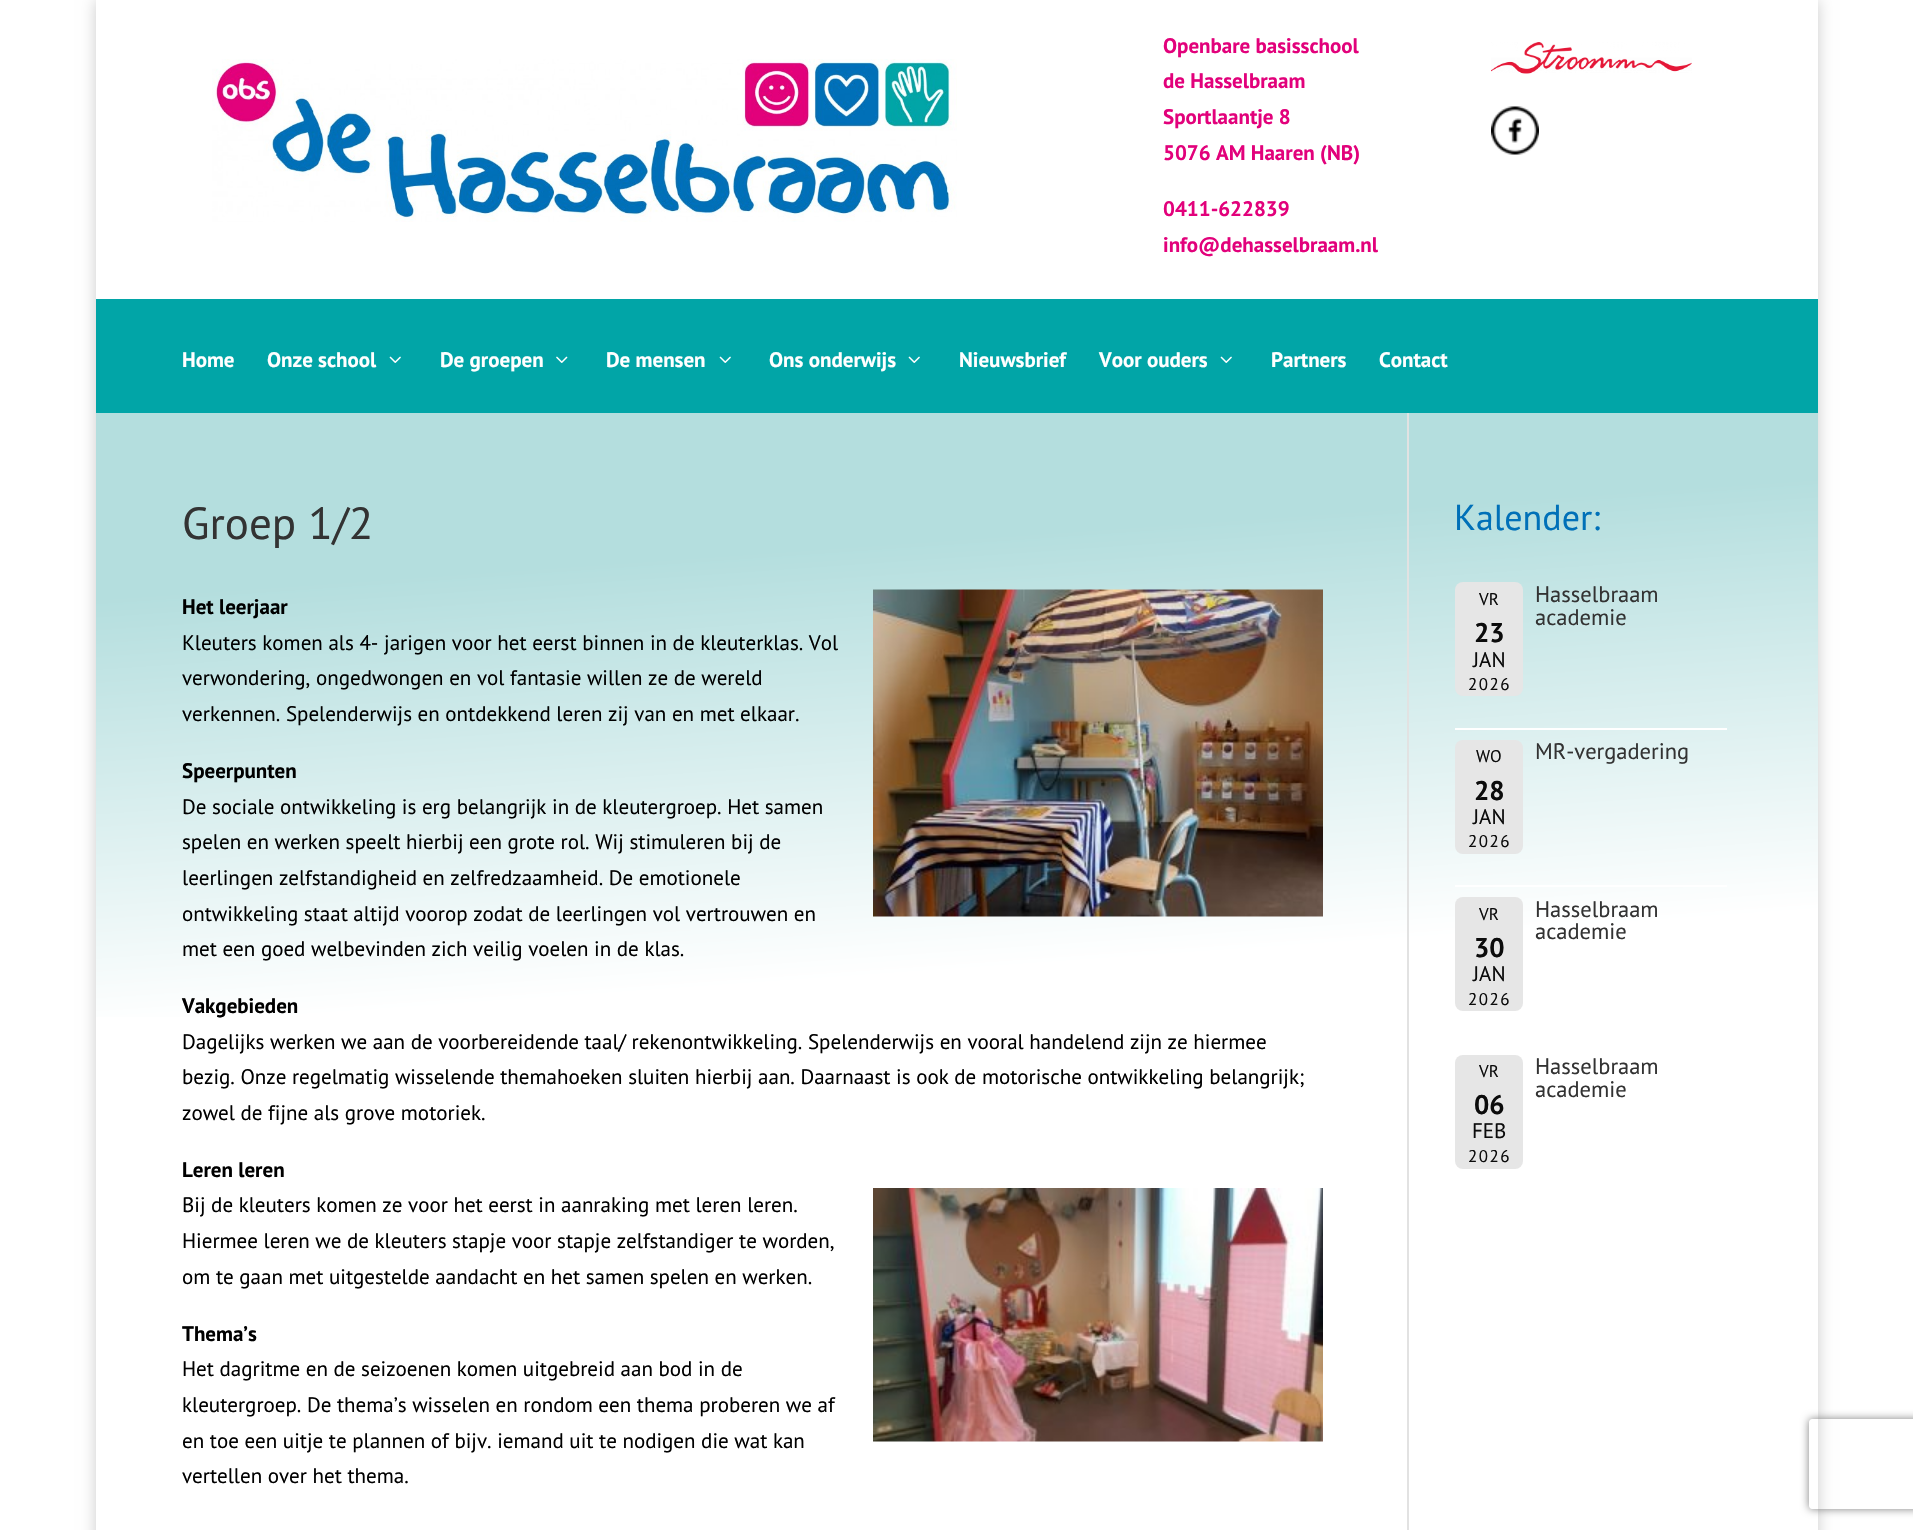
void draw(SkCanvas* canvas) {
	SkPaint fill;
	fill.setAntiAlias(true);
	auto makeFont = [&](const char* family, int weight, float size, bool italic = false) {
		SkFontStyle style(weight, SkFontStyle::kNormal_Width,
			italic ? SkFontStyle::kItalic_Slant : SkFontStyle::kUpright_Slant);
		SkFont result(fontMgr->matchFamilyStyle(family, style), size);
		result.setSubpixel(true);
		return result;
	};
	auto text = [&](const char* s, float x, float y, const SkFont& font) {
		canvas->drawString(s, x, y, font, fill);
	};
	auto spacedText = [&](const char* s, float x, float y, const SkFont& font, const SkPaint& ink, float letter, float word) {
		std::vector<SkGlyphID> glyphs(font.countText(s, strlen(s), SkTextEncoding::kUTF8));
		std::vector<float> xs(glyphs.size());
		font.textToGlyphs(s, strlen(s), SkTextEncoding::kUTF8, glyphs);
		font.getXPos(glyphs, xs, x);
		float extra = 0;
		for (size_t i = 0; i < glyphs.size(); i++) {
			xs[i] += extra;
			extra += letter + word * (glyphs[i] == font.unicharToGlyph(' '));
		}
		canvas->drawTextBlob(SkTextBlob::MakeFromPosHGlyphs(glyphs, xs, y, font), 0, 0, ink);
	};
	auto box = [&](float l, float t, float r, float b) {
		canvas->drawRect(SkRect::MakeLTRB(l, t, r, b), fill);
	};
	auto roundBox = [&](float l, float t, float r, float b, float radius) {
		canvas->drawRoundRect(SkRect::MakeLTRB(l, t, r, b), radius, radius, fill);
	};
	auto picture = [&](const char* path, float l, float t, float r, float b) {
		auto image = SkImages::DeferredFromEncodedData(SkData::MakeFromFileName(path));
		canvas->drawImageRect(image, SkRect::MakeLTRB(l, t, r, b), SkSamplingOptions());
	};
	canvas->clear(0xFFFFFFFF);
	canvas->save();
	canvas->clipPath(SkPathBuilder(SkPathFillType::kEvenOdd).moveTo(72, 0).lineTo(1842, 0).lineTo(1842, 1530).lineTo(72, 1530).close().moveTo(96, 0).lineTo(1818, 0).lineTo(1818, 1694).lineTo(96, 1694).close().detach(), true);
	fill.setColor(0x33000000);
	fill.setMaskFilter(SkMaskFilter::MakeBlur(kNormal_SkBlurStyle, 7.5f));
	canvas->drawRect(SkRect::MakeLTRB(96, 0, 1818, 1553), fill);
	fill.setMaskFilter(nullptr);
	canvas->restore();
	picture("image0.png", 212, 59, 957, 222);
	picture("image1.png", 1491, 42, 1692, 74);
	picture("image2.png", 1491, 106, 1539, 155);
	fill.setColor(0xFF01A5A7);
	box(96, 299, 1818, 413);
	picture("image3.png", 389, 356, 401, 363);
	picture("image4.png", 556, 356, 568, 363);
	picture("image3.png", 719, 356, 731, 363);
	picture("image3.png", 908, 356, 920, 363);
	picture("image3.png", 1220, 356, 1232, 363);
	{
		const SkColor colors[] = {0xFFB4DEDE, 0xFFFFFFFF};
		const float stops[] = {0.15f, 0.5f};
		const SkPoint ends[] = {{914, 355}, {1000, 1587}};
		fill.setShader(SkGradientShader::MakeLinear(ends, colors, stops, 2, SkTileMode::kClamp));
		fill.setAlpha(255);
	}
	box(96, 413, 1818, 1017);
	fill.setShader(nullptr);
	fill.setColor(0xFFE2E2E2);
	box(1407, 413, 1409, 1530);
	picture("image5.png", 873, 589, 1323, 917);
	picture("image6.png", 873, 1188, 1323, 1442);
	fill.setColor(0xFFFFFFFF);
	box(1455, 728, 1727, 730);
	fill.setColor(0xFFE6E6E6);
	roundBox(1455, 582, 1523, 696, 8);
	fill.setColor(0xFFFFFFFF);
	box(1455, 885, 1727, 887);
	fill.setColor(0xFFE6E6E6);
	roundBox(1455, 740, 1523, 854, 8);
	roundBox(1455, 897, 1523, 1011, 8);
	roundBox(1455, 1055, 1523, 1169, 8);
	canvas->save();
	canvas->clipPath(SkPathBuilder(SkPathFillType::kEvenOdd).moveTo(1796, 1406).lineTo(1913, 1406).lineTo(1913, 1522).lineTo(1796, 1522).close().moveTo(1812, 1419).lineTo(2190, 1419).cubicTo(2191.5f, 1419, 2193, 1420.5f, 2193, 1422).lineTo(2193, 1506).cubicTo(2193, 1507.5f, 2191.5f, 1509, 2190, 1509).lineTo(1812, 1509).cubicTo(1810.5f, 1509, 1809, 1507.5f, 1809, 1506).lineTo(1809, 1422).cubicTo(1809, 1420.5f, 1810.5f, 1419, 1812, 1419).close().detach(), true);
	fill.setColor(0xFF808080);
	fill.setMaskFilter(SkMaskFilter::MakeBlur(kNormal_SkBlurStyle, 4));
	canvas->drawRoundRect(SkRect::MakeLTRB(1809, 1419, 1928, 1509), 3, 3, fill);
	fill.setMaskFilter(nullptr);
	canvas->restore();
	auto font1 = makeFont("PT Sans", 700, 21);
	fill.setColor(0xFFE2017B);
	text("Openbare basisschool", 1163, 53, font1);
	text("de Hasselbraam", 1163, 88, font1);
	text("Sportlaantje 8", 1163, 124, font1);
	text("5076 AM Haaren (NB)", 1163, 160, font1);
	text("0411-622839", 1163, 216, font1);
	text("info@dehasselbraam.nl", 1163, 252, font1);
	fill.setColor(0xFFFFFFFF);
	text("Home", 182, 367, font1);
	text("Onze school", 267, 367, font1);
	text("De groepen", 440, 367, font1);
	text("De mensen", 606, 367, font1);
	text("Ons onderwijs", 769, 367, font1);
	text("Nieuwsbrief", 959, 367, font1);
	text("Voor ouders", 1099, 367, font1);
	text("Partners", 1271, 367, font1);
	text("Contact", 1379, 367, font1);
	auto font2 = makeFont("PT Sans", 400, 45);
	fill.setColor(0xFF333333);
	text("Groep 1/2", 182, 539, font2);
	fill.setColor(0xFF000000);
	text("Het leerjaar", 182, 614, font1);
	auto font3 = makeFont("PT Sans", 400, 21);
	text("Kleuters komen als 4- jarigen voor het eerst binnen in de kleuterklas. Vol", 182, 650, font3);
	text("verwondering, ongedwongen en vol fantasie willen ze de wereld", 182, 685, font3);
	text("verkennen. Spelenderwijs en ontdekkend leren zij van en met elkaar.", 182, 721, font3);
	text("Speerpunten", 182, 778, font1);
	text("De sociale ontwikkeling is erg belangrijk in de kleutergroep. Het samen", 182, 814, font3);
	text("spelen en werken speelt hierbij een grote rol. Wij stimuleren bij de", 182, 849, font3);
	text("leerlingen zelfstandigheid en zelfredzaamheid. De emotionele", 182, 885, font3);
	text("ontwikkeling staat altijd voorop zodat de leerlingen vol vertrouwen en", 182, 921, font3);
	text("met een goed welbevinden zich veilig voelen in de klas.", 182, 956, font3);
	text("Vakgebieden", 182, 1013, font1);
	text("Dagelijks werken we aan de voorbereidende taal/ rekenontwikkeling. Spelenderwijs en vooral handelend zijn ze hiermee", 182, 1049, font3);
	text("bezig. Onze regelmatig wisselende themahoeken sluiten hierbij aan. Daarnaast is ook de motorische ontwikkeling belangrijk;", 182, 1084, font3);
	text("zowel de fijne als grove motoriek.", 182, 1120, font3);
	text("Leren leren", 182, 1177, font1);
	text("Bij de kleuters komen ze voor het eerst in aanraking met leren leren.", 182, 1212, font3);
	text("Hiermee leren we de kleuters stapje voor stapje zelfstandiger te worden,", 182, 1248, font3);
	text("om te gaan met uitgestelde aandacht en het samen spelen en werken.", 182, 1284, font3);
	text("Thema’s", 182, 1341, font1);
	text("Het dagritme en de seizoenen komen uitgebreid aan bod in de", 182, 1376, font3);
	text("kleutergroep. De thema’s wisselen en rondom een thema proberen we af", 182, 1412, font3);
	text("en toe een uitje te plannen of bijv. iemand uit te nodigen die wat kan", 182, 1448, font3);
	text("vertellen over het thema.", 182, 1483, font3);
	auto font4 = makeFont("PT Sans", 400, 36);
	fill.setColor(0xFF0070B8);
	text("Kalender:", 1454, 530, font4);
	auto font5 = makeFont("PT Sans", 400, 17);
	fill.setColor(0xFF0C0C0C);
	text("VR", 1479, 605, font5);
	auto font6 = makeFont("PT Sans", 700, 27);
	text("23", 1474, 642, font6);
	text("JAN", 1473, 667, font3);
	spacedText("2026", 1468, 690, font5, fill, 1.5f, 0);
	auto font7 = makeFont("PT Sans", 400, 22.5f);
	fill.setColor(0xFF333333);
	text("Hasselbraam", 1535, 602, font7);
	text("academie", 1535, 625, font7);
	fill.setColor(0xFF0C0C0C);
	text("WO", 1476, 762, font5);
	text("28", 1474, 800, font6);
	text("JAN", 1473, 824, font3);
	spacedText("2026", 1468, 847, font5, fill, 1.5f, 0);
	fill.setColor(0xFF333333);
	text("MR-vergadering", 1535, 759, font7);
	fill.setColor(0xFF0C0C0C);
	text("VR", 1479, 920, font5);
	text("30", 1474, 957, font6);
	text("JAN", 1473, 981, font3);
	spacedText("2026", 1468, 1005, font5, fill, 1.5f, 0);
	fill.setColor(0xFF333333);
	text("Hasselbraam", 1535, 917, font7);
	text("academie", 1535, 939, font7);
	fill.setColor(0xFF0C0C0C);
	text("VR", 1479, 1077, font5);
	text("06", 1474, 1114, font6);
	text("FEB", 1472, 1138, font3);
	spacedText("2026", 1468, 1162, font5, fill, 1.5f, 0);
	fill.setColor(0xFF333333);
	text("Hasselbraam", 1535, 1074, font7);
	text("academie", 1535, 1097, font7);
}
